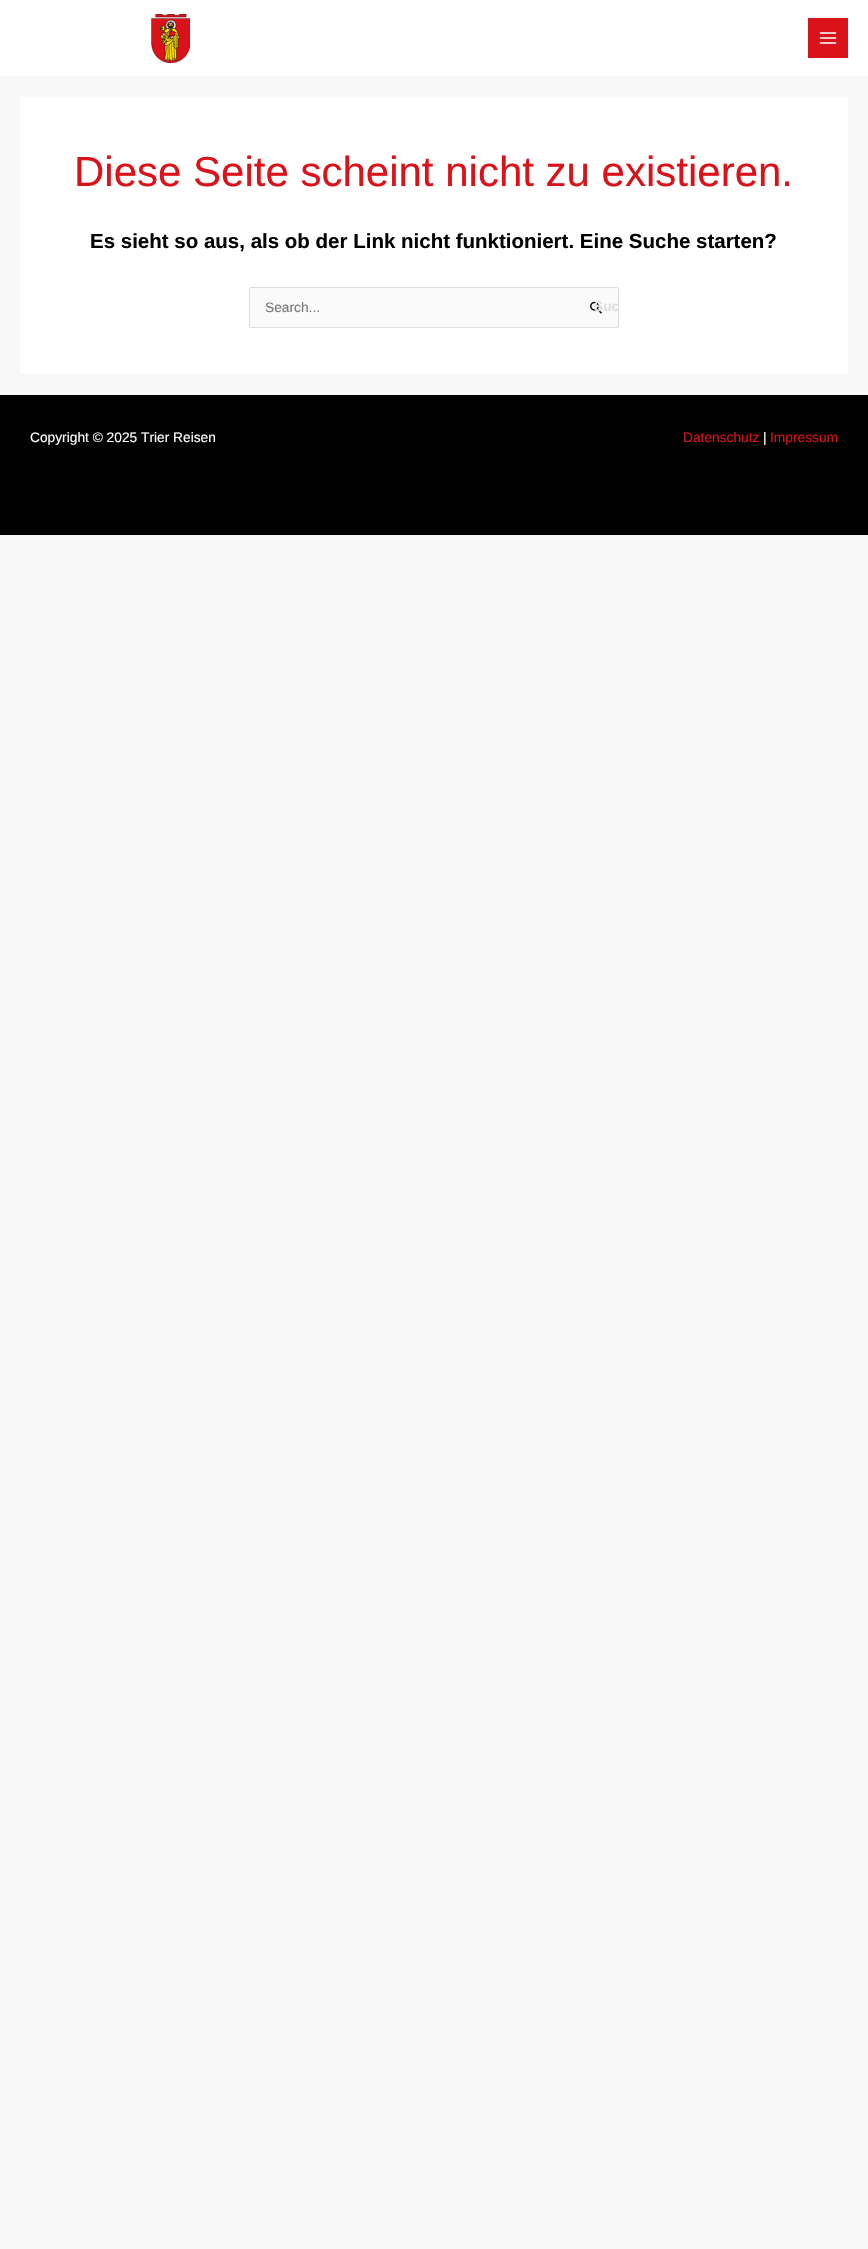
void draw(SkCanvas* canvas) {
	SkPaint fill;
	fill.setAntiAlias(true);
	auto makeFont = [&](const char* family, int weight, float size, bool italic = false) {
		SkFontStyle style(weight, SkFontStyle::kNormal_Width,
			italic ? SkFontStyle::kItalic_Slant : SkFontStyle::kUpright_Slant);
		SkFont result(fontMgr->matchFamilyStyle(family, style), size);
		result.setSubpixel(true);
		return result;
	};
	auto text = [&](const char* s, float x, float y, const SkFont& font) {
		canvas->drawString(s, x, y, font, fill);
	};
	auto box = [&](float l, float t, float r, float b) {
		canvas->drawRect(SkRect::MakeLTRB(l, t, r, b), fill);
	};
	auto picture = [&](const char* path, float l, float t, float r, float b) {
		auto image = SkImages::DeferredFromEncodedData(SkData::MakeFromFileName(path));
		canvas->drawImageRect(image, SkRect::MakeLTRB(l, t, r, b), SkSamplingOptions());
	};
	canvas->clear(0xFFF9F8F8);
	fill.setColor(0xFFFFFFFF);
	box(0, 0, 868, 76);
	picture("image0.png", 151, 14, 190, 63);
	fill.setColor(0xFFDA121A);
	box(808, 18, 848, 58);
	picture("image1.png", 819, 32, 837, 44);
	fill.setColor(0xFFFFFFFF);
	box(20, 97, 848, 374);
	fill.setColor(0xFFFAFAFA);
	canvas->drawRoundRect(SkRect::MakeLTRB(249.5f, 287.5f, 618.5f, 327.5f), 1.5f, 1.5f, fill);
	fill.setStyle(SkPaint::kStroke_Style);
	fill.setStrokeWidth(1);
	fill.setColor(0xFFDDDDDD);
	canvas->drawRoundRect(SkRect::MakeLTRB(249.5f, 287.5f, 618.5f, 327.5f), 1.5f, 1.5f, fill);
	picture("image2.png", 590, 301, 602, 314);
	fill.setStyle(SkPaint::kFill_Style);
	fill.setColor(0xFF020101);
	box(0, 395, 868, 535);
	auto font1 = makeFont("Liberation Sans", 400, 42);
	fill.setColor(0xFFDA121A);
	text("Diese Seite scheint nicht zu existieren.", 74, 186, font1);
	auto font2 = makeFont("Liberation Sans", 700, 20.5f);
	fill.setColor(0xFF020101);
	text("Es sieht so aus, als ob der Link nicht funktioniert. Eine Suche starten?", 90, 248, font2);
	auto font3 = makeFont("Liberation Sans", 400, 13.75f);
	fill.setColor(0xFF757575);
	text("Search...", 265, 312, font3);
	auto font4 = makeFont("Liberation Sans", 700, 13.75f);
	fill.setColor(0xFFDFDFDF);
	text("Suc", 594, 311, font4);
	fill.setColor(0xFFFFFFFF);
	text("Copyright © 2025 Trier Reisen", 30, 442, font3);
	fill.setColor(0xFFDA121A);
	text("Datenschutz", 683, 442, font3);
	fill.setColor(0xFFFFFFFF);
	text("|", 763, 442, font3);
	fill.setColor(0xFFDA121A);
	text("Impressum", 770, 442, font3);
}
